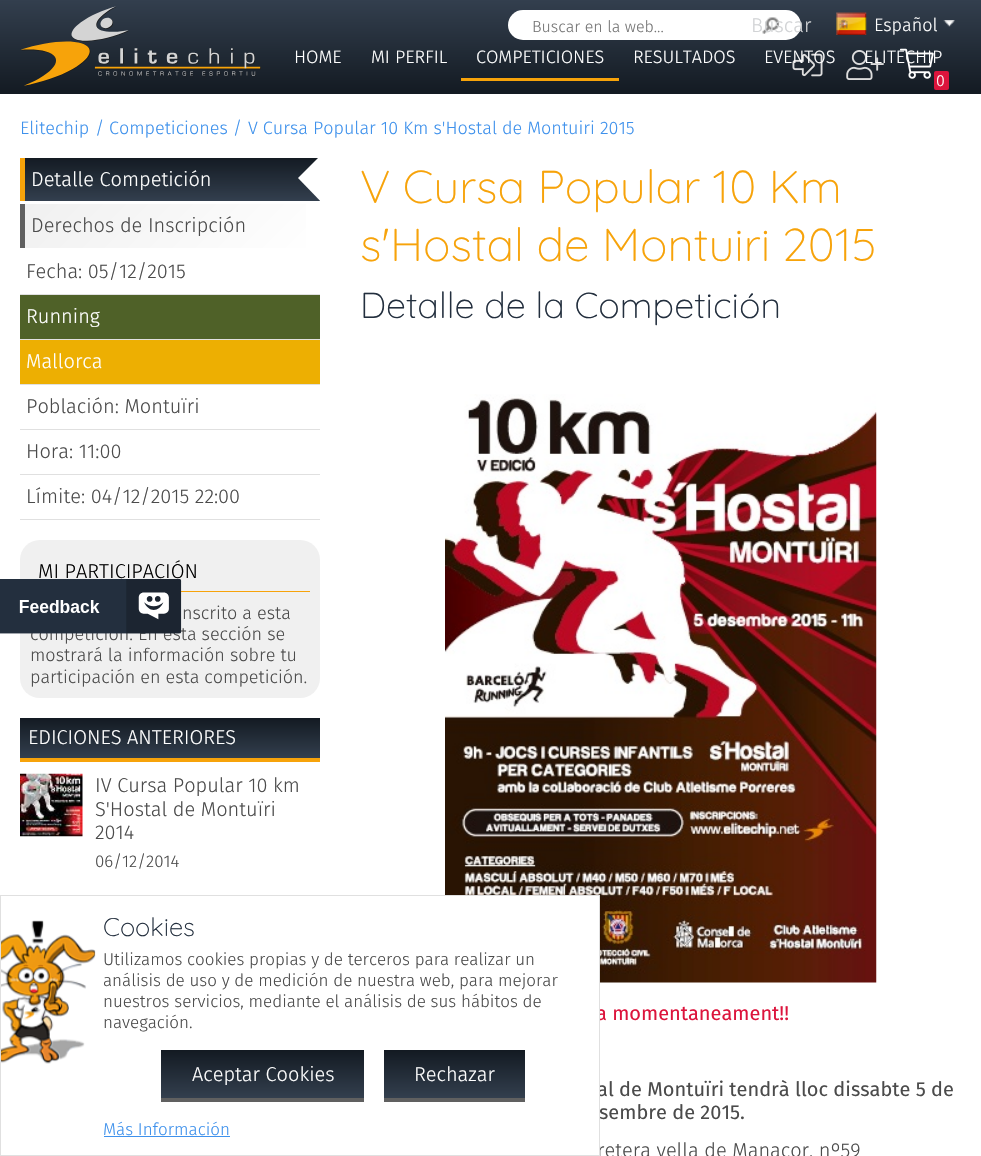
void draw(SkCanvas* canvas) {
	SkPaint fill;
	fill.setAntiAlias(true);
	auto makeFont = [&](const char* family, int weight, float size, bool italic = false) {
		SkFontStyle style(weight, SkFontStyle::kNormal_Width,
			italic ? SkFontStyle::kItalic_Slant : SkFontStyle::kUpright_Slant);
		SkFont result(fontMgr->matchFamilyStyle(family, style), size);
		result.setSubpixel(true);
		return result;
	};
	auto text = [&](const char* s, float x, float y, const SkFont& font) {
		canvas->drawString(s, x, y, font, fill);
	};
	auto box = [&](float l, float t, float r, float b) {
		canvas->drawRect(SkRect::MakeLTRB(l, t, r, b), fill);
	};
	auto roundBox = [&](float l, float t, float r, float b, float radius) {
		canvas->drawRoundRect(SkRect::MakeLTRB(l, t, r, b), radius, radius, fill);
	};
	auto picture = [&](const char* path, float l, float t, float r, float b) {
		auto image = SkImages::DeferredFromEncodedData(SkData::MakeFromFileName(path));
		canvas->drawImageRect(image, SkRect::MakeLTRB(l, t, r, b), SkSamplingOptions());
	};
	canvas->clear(0xFFFFFFFF);
	{
		const SkColor colors[] = {0xFF333F4E, 0xFF131A22};
		const float stops[] = {0, 1};
		const SkPoint ends[] = {{491, 0}, {491, 94}};
		fill.setShader(SkGradientShader::MakeLinear(ends, colors, stops, 2, SkTileMode::kClamp));
		fill.setAlpha(255);
	}
	box(0, 0, 981, 90);
	picture("image0.png", 21, 6, 261, 86);
	fill.setShader(nullptr);
	fill.setColor(0xFFFFFFFF);
	roundBox(508, 10, 801, 40, 15);
	picture("image1.png", 762, 17, 780, 34);
	picture("image2.png", 836, 12, 867, 35);
	picture("image3.png", 943, 20, 955, 27);
	fill.setColor(0xFFF7A30A);
	box(461, 78, 619, 81);
	picture("image4.png", 792, 53, 823, 77);
	picture("image5.png", 846, 50, 884, 80);
	picture("image6.png", 900, 48, 934, 79);
	fill.setColor(0xFFDC143C);
	roundBox(934, 71, 949, 90, 2);
	fill.setColor(0xFF131A22);
	box(0, 90, 981, 94);
	{
		const SkColor colors[] = {0xFF131A22, 0xFF333F4E};
		const float stops[] = {0, 1};
		const SkPoint ends[] = {{173, 157}, {173, 201}};
		fill.setShader(SkGradientShader::MakeLinear(ends, colors, stops, 2, SkTileMode::kClamp));
		fill.setAlpha(255);
	}
	box(25, 158, 320, 201);
	fill.setShader(nullptr);
	fill.setColor(0xFFF7A30A);
	box(20, 158, 25, 201);
	canvas->save();
	canvas->clipRect(SkRect::MakeLTRB(20, 158, 320, 250));
	fill.setColor(0xFFFFFFFF);
	canvas->drawPath(SkPathBuilder().moveTo(326, 150).lineTo(354, 178).lineTo(326, 207).lineTo(298, 178).close().detach(), fill);
	canvas->restore();
	{
		const SkColor colors[] = {0xFFF0F0F0, 0xFFFFFFFF};
		const float stops[] = {0, 1};
		const SkPoint ends[] = {{88, 141}, {257, 310}};
		fill.setShader(SkGradientShader::MakeLinear(ends, colors, stops, 2, SkTileMode::kClamp));
		fill.setAlpha(255);
	}
	box(25, 204, 306, 248);
	fill.setShader(nullptr);
	fill.setColor(0xFF606060);
	box(20, 204, 25, 248);
	fill.setColor(0xFFE0E0E0);
	box(20, 294, 320, 295);
	fill.setColor(0xFF4F6128);
	box(20, 295, 320, 339);
	fill.setColor(0xFFE0E0E0);
	box(20, 339, 320, 340);
	fill.setColor(0xFFEDAF02);
	box(20, 340, 320, 384);
	fill.setColor(0xFFE0E0E0);
	box(20, 384, 320, 385);
	box(20, 429, 320, 430);
	box(20, 474, 320, 475);
	box(20, 519, 320, 520);
	fill.setColor(0xFFF0F0F0);
	roundBox(20, 540, 320, 698, 20);
	fill.setColor(0xFFF7A30A);
	box(181, 591, 310, 592);
	{
		const SkColor colors[] = {0xFF131A22, 0xFF333F4E};
		const float stops[] = {0, 1};
		const SkPoint ends[] = {{170, 718}, {170, 758}};
		fill.setShader(SkGradientShader::MakeLinear(ends, colors, stops, 2, SkTileMode::kClamp));
		fill.setAlpha(255);
	}
	box(20, 718, 320, 758);
	fill.setShader(nullptr);
	fill.setColor(0xFFF7A30A);
	box(20, 758, 320, 762);
	picture("image7.png", 20, 773, 83, 837);
	picture("image8.png", 445, 394, 877, 983);
	picture("image10.png", 1, 920, 96, 1064);
	auto font1 = makeFont("Fira Sans", 300, 16);
	fill.setColor(0xFF757575);
	text("Buscar en la web...", 532, 32, font1);
	auto font2 = makeFont("Fira Sans", 300, 20);
	fill.setColor(0xFFD1D3D5);
	text("Buscar", 751, 32, font2);
	auto font3 = makeFont("Fira Sans", 300, 18);
	fill.setColor(0xFFFFFFFF);
	text("Español", 874, 31, font3);
	text("HOME", 294, 63, font3);
	text("MI PERFIL", 371, 63, font3);
	text("COMPETICIONES", 476, 63, font3);
	text("RESULTADOS", 633, 63, font3);
	text("EVENTOS", 764, 63, font3);
	text("ELITECHIP", 864, 63, font3);
	text("0", 936, 86, font1);
	fill.setColor(0xFF3E91EC);
	text("Elitechip", 20, 134, font3);
	text("/", 95, 134, font3);
	text("Competiciones /", 109, 134, font3);
	text("V Cursa Popular 10 Km s'Hostal de Montuiri 2015", 248, 134, font3);
	fill.setColor(0xFFFFFFFF);
	text("Detalle Competición", 31, 186, font2);
	fill.setColor(0xFF4B4B4B);
	text("Derechos de Inscripción", 31, 232, font2);
	text("Fecha: 05/12/2015", 26, 278, font2);
	fill.setColor(0xFFFFFFFF);
	text("Running", 26, 323, font2);
	text("Mallorca", 26, 368, font2);
	fill.setColor(0xFF4B4B4B);
	text("Población: Montuïri", 26, 413, font2);
	text("Hora: 11:00", 26, 458, font2);
	text("Límite: 04/12/2015 22:00", 26, 503, font2);
	fill.setColor(0xFF000000);
	text("MI PARTICIPACIÓN", 38, 578, font2);
	fill.setColor(0xFF4B4B4B);
	text("nscrito a esta", 182, 619, font3);
	text("competición. En esta sección se", 30, 640, font3);
	text("mostrará la información sobre tu", 30, 661, font3);
	text("participación en esta competición.", 30, 683, font3);
	fill.setColor(0xFFFFFFFF);
	text("EDICIONES ANTERIORES", 28, 744, font2);
	fill.setColor(0xFF4B4B4B);
	text("IV Cursa Popular 10 km", 95, 792, font2);
	text("S'Hostal de Montuïri", 95, 816, font2);
	text("2014", 95, 839, font2);
	auto font4 = makeFont("Fira Sans", 300, 17);
	text("06/12/2014", 95, 867, font4);
	auto font5 = makeFont("Quicksand", 300, 46);
	fill.setColor(0xFFF7A30A);
	text("V Cursa Popular 10 Km", 360, 203, font5);
	text("s'Hostal de Montuiri 2015", 360, 261, font5);
	auto font6 = makeFont("Quicksand", 300, 36);
	fill.setColor(0xFF232F3E);
	text("Detalle de la Competición", 360, 318, font6);
	auto font7 = makeFont("Fira Sans", 400, 20);
	fill.setColor(0xFFDC143C);
	text("a momentaneament!!", 596, 1020, font7);
	fill.setColor(0xFF4B4B4B);
	text("al de Montuïri tendrà lloc dissabte 5 de", 597, 1096, font7);
	text("sembre de 2015.", 599, 1119, font7);
	text("retera vella de Manacor, nº59", 597, 1157, font2);
	picture("image9.png", 0, 579, 182, 634);
	fill.setColor(0xFFFFFFFF);
	box(445, 896, 599, 1155);
	fill.setStyle(SkPaint::kStroke_Style);
	fill.setStrokeWidth(1);
	fill.setColor(0xFFE0E0E0);
	canvas->drawRect(SkRect::MakeLTRB(0.5f, 895.5f, 599.5f, 1155.5f), fill);
	auto font8 = makeFont("Quicksand", 300, 25.5f);
	fill.setStyle(SkPaint::kFill_Style);
	fill.setColor(0xFF232F3E);
	text("Cookies", 103, 936, font8);
	fill.setColor(0xFF4B4B4B);
	text("Utilizamos cookies propias y de terceros para realizar un", 103, 965, font4);
	text("análisis de uso y de medición de nuestra web, para mejorar", 103, 986, font4);
	text("nuestros servicios, mediante el análisis de sus hábitos de", 103, 1007, font4);
	text("navegación.", 103, 1028, font4);
	{
		const SkColor colors[] = {0xFF131A22, 0xFF333F4E};
		const float stops[] = {0, 1};
		const SkPoint ends[] = {{263, 1050}, {263, 1098}};
		fill.setShader(SkGradientShader::MakeLinear(ends, colors, stops, 2, SkTileMode::kClamp));
		fill.setAlpha(255);
	}
	box(161, 1050, 364, 1098);
	fill.setShader(nullptr);
	fill.setColor(0xFF606060);
	box(161, 1098, 364, 1102);
	fill.setColor(0xFFFFFFFF);
	text("Aceptar Cookies", 192, 1081, font2);
	{
		const SkColor colors[] = {0xFF131A22, 0xFF333F4E};
		const float stops[] = {0, 1};
		const SkPoint ends[] = {{454, 1050}, {454, 1098}};
		fill.setShader(SkGradientShader::MakeLinear(ends, colors, stops, 2, SkTileMode::kClamp));
		fill.setAlpha(255);
	}
	box(384, 1050, 525, 1098);
	fill.setShader(nullptr);
	fill.setColor(0xFF606060);
	box(384, 1098, 525, 1102);
	fill.setColor(0xFFFFFFFF);
	text("Rechazar", 414, 1081, font2);
	fill.setColor(0xFF3E91EC);
	text("Más Información", 103, 1135, font4);
	box(104, 1136, 230, 1137);
}
